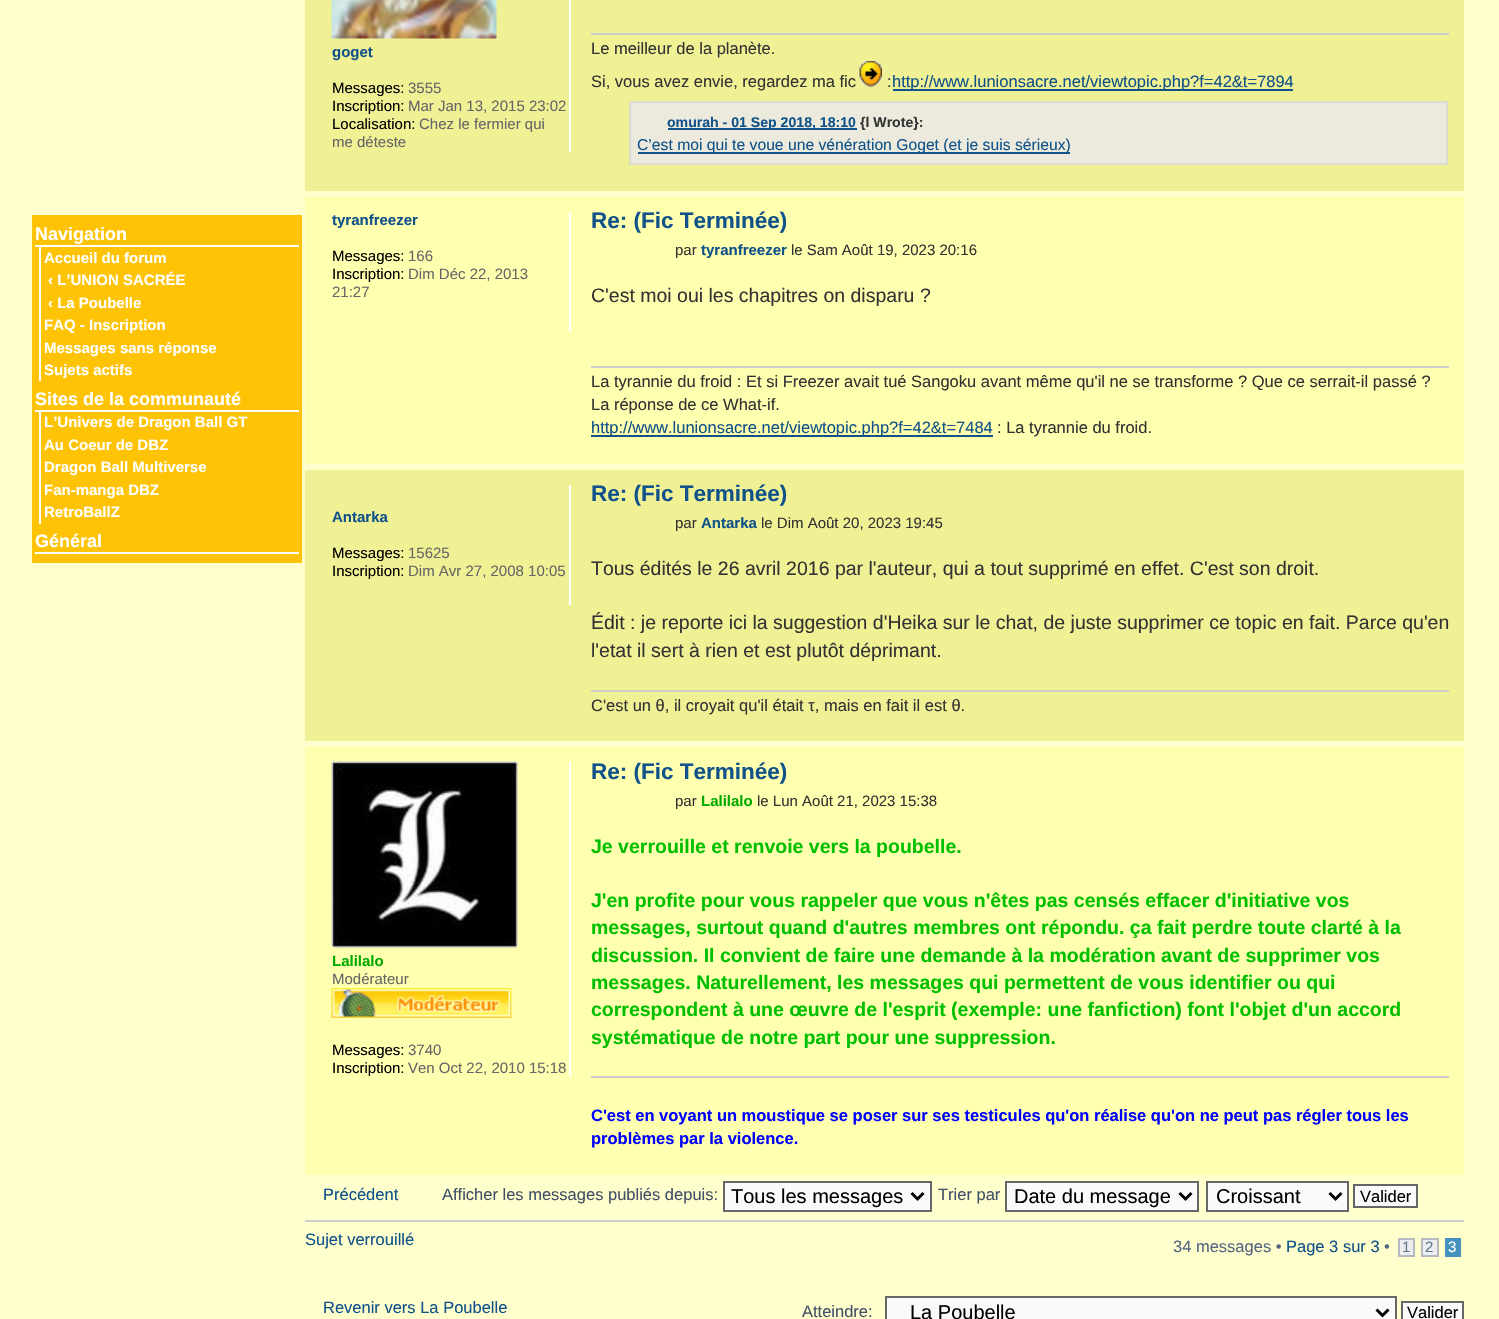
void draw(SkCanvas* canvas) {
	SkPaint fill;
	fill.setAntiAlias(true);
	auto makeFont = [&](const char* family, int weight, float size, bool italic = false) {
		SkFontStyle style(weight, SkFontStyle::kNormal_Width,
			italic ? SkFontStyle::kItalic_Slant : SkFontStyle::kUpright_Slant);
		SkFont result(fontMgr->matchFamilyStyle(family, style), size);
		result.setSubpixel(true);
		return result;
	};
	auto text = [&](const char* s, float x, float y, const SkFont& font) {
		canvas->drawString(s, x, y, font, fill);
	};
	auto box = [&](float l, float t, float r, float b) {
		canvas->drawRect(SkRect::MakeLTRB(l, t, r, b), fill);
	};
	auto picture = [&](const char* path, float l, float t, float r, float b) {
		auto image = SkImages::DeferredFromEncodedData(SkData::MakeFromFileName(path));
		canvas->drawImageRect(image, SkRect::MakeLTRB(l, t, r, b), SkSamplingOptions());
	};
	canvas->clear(0xFFFFFFCD);
	fill.setColor(0xFFFEC305);
	box(32, 215, 302, 563);
	fill.setColor(0xFFFFFFFF);
	box(35, 245, 299, 247);
	box(39, 246, 41, 381);
	box(35, 410, 299, 412);
	box(39, 411, 41, 524);
	box(35, 552, 299, 554);
	fill.setColor(0xFFF0F095);
	box(305, 0, 1464, 191);
	fill.setColor(0xFFFFFFFF);
	box(569, 0, 571, 152);
	picture("image0.png", 331, 0, 497, 39);
	fill.setColor(0xFFCCCCCC);
	box(591, 33, 1449, 35);
	picture("image1.png", 859, 61, 882, 87);
	fill.setColor(0xFF105289);
	box(893, 89, 1293, 91);
	fill.setColor(0xFFEBEADD);
	canvas->drawRect(SkRect::MakeLTRB(630, 102, 1447, 164), fill);
	fill.setStyle(SkPaint::kStroke_Style);
	fill.setStrokeWidth(2);
	fill.setColor(0xFFDBDBCE);
	canvas->drawRect(SkRect::MakeLTRB(630, 102, 1447, 164), fill);
	fill.setStyle(SkPaint::kFill_Style);
	fill.setColor(0xFF105289);
	box(668, 128, 857, 130);
	box(638, 152, 1070, 154);
	fill.setColor(0xFFFFFFB0);
	box(305, 197, 1464, 464);
	fill.setColor(0xFFFFFFFF);
	box(569, 212, 571, 332);
	fill.setColor(0xFFCCCCCC);
	box(591, 366, 1449, 368);
	fill.setColor(0xFF105289);
	box(591, 435, 993, 437);
	fill.setColor(0xFFF0F095);
	box(305, 470, 1464, 741);
	fill.setColor(0xFFFFFFFF);
	box(569, 485, 571, 605);
	fill.setColor(0xFFCCCCCC);
	box(591, 690, 1449, 692);
	fill.setColor(0xFFFFFFB0);
	box(305, 747, 1464, 1175);
	fill.setColor(0xFFFFFFFF);
	box(569, 762, 571, 1077);
	picture("image2.png", 331, 761, 518, 948);
	picture("image3.png", 331, 988, 512, 1018);
	fill.setColor(0xFFCCCCCC);
	box(591, 1076, 1449, 1078);
	fill.setColor(0xFFFAFAFA);
	canvas->drawRect(SkRect::MakeLTRB(724, 1182, 931, 1211), fill);
	fill.setStyle(SkPaint::kStroke_Style);
	fill.setColor(0xFF666666);
	canvas->drawRect(SkRect::MakeLTRB(724, 1182, 931, 1211), fill);
	fill.setStrokeWidth(3);
	fill.setColor(0xFF000000);
	canvas->drawPath(SkPathBuilder().moveTo(911.5f, 1193).lineTo(917.5f, 1199).lineTo(923.5f, 1193).detach(), fill);
	fill.setStyle(SkPaint::kFill_Style);
	fill.setColor(0xFFFAFAFA);
	canvas->drawRect(SkRect::MakeLTRB(1006, 1182, 1198, 1211), fill);
	fill.setStyle(SkPaint::kStroke_Style);
	fill.setStrokeWidth(2);
	fill.setColor(0xFF666666);
	canvas->drawRect(SkRect::MakeLTRB(1006, 1182, 1198, 1211), fill);
	fill.setStrokeWidth(3);
	fill.setColor(0xFF000000);
	canvas->drawPath(SkPathBuilder().moveTo(1179.5f, 1193).lineTo(1185.5f, 1199).lineTo(1191.5f, 1193).detach(), fill);
	fill.setStyle(SkPaint::kFill_Style);
	fill.setColor(0xFFFAFAFA);
	canvas->drawRect(SkRect::MakeLTRB(1207, 1182, 1348, 1211), fill);
	fill.setStyle(SkPaint::kStroke_Style);
	fill.setStrokeWidth(2);
	fill.setColor(0xFF666666);
	canvas->drawRect(SkRect::MakeLTRB(1207, 1182, 1348, 1211), fill);
	fill.setStrokeWidth(3);
	fill.setColor(0xFF000000);
	canvas->drawPath(SkPathBuilder().moveTo(1329.5f, 1193).lineTo(1335.5f, 1199).lineTo(1341.5f, 1193).detach(), fill);
	fill.setStyle(SkPaint::kFill_Style);
	fill.setColor(0xFFFAFAFA);
	canvas->drawRect(SkRect::MakeLTRB(1354, 1185, 1417, 1207), fill);
	fill.setStyle(SkPaint::kStroke_Style);
	fill.setStrokeWidth(2);
	fill.setColor(0xFF666666);
	canvas->drawRect(SkRect::MakeLTRB(1354, 1185, 1417, 1207), fill);
	fill.setStyle(SkPaint::kFill_Style);
	fill.setColor(0xFFCCCCCC);
	box(305, 1220, 1464, 1222);
	fill.setColor(0xFFECEDEE);
	canvas->drawRect(SkRect::MakeLTRB(1399, 1239, 1414, 1256), fill);
	fill.setStyle(SkPaint::kStroke_Style);
	fill.setColor(0xFFB4BAC0);
	canvas->drawRect(SkRect::MakeLTRB(1399, 1239, 1414, 1256), fill);
	fill.setStyle(SkPaint::kFill_Style);
	fill.setColor(0xFFECEDEE);
	canvas->drawRect(SkRect::MakeLTRB(1422, 1239, 1438, 1256), fill);
	fill.setStyle(SkPaint::kStroke_Style);
	fill.setColor(0xFFB4BAC0);
	canvas->drawRect(SkRect::MakeLTRB(1422, 1239, 1438, 1256), fill);
	fill.setStyle(SkPaint::kFill_Style);
	fill.setColor(0xFF4692BF);
	box(1445, 1238, 1461, 1257);
	fill.setColor(0xFFFAFAFA);
	canvas->drawRect(SkRect::MakeLTRB(886, 1297, 1396, 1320), fill);
	fill.setStyle(SkPaint::kStroke_Style);
	fill.setColor(0xFF666666);
	canvas->drawRect(SkRect::MakeLTRB(886, 1297, 1396, 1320), fill);
	fill.setStrokeWidth(3);
	fill.setColor(0xFF000000);
	canvas->drawPath(SkPathBuilder().moveTo(1376.5f, 1309.5f).lineTo(1382.5f, 1315.5f).lineTo(1388.5f, 1309.5f).detach(), fill);
	fill.setStyle(SkPaint::kFill_Style);
	fill.setColor(0xFFFAFAFA);
	canvas->drawRect(SkRect::MakeLTRB(1402, 1302, 1463, 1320), fill);
	fill.setStyle(SkPaint::kStroke_Style);
	fill.setStrokeWidth(2);
	fill.setColor(0xFF666666);
	canvas->drawRect(SkRect::MakeLTRB(1402, 1302, 1463, 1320), fill);
	auto font1 = makeFont("Liberation Sans", 700, 18);
	fill.setStyle(SkPaint::kFill_Style);
	fill.setColor(0xFFFFFFFF);
	text("Navigation", 35, 240, font1);
	auto font2 = makeFont("Liberation Sans", 700, 15);
	text("Accueil du forum", 44, 263, font2);
	text("‹ L’UNION SACRÉE", 48, 285, font2);
	text("‹ La Poubelle", 48, 308, font2);
	text("FAQ - Inscription", 44, 330, font2);
	text("Messages sans réponse", 44, 353, font2);
	text("Sujets actifs", 44, 375, font2);
	text("Sites de la communauté", 35, 405, font1);
	text("L’Univers de Dragon Ball GT", 44, 427, font2);
	text("Au Coeur de DBZ", 44, 450, font2);
	text("Dragon Ball Multiverse", 44, 472, font2);
	text("Fan-manga DBZ", 44, 495, font2);
	text("RetroBallZ", 44, 517, font2);
	text("Général", 35, 547, font1);
	fill.setColor(0xFF105289);
	text("goget", 332, 57, font2);
	auto font3 = makeFont("Liberation Sans", 400, 15);
	fill.setColor(0xFF000000);
	text("Messages:", 332, 93, font3);
	fill.setColor(0xFF666666);
	text("3555", 408, 93, font3);
	fill.setColor(0xFF000000);
	text("Inscription:", 332, 111, font3);
	fill.setColor(0xFF666666);
	text("Mar Jan 13, 2015 23:02", 408, 111, font3);
	fill.setColor(0xFF000000);
	text("Localisation:", 332, 129, font3);
	fill.setColor(0xFF666666);
	text("Chez le fermier qui", 419, 129, font3);
	text("me déteste", 332, 147, font3);
	auto font4 = makeFont("Liberation Sans", 400, 16.5f);
	fill.setColor(0xFF333333);
	text("Le meilleur de la planète.", 591, 54, font4);
	text("Si, vous avez envie, regardez ma fic", 591, 87, font4);
	text(":", 887, 87, font4);
	fill.setColor(0xFF105289);
	text("http://www.lunionsacre.net/viewtopic.php?f=42&t=7894", 892, 87, font4);
	auto font5 = makeFont("Liberation Sans", 700, 14.1f);
	text("omurah - 01 Sep 2018, 18:10", 667, 127, font5);
	fill.setColor(0xFF333333);
	text("{l Wrote}:", 860, 127, font5);
	auto font6 = makeFont("Liberation Sans", 400, 15.7f);
	fill.setColor(0xFF105289);
	text("C’est moi qui te voue une vénération Goget (et je suis sérieux)", 637, 150, font6);
	text("tyranfreezer", 332, 225, font2);
	fill.setColor(0xFF000000);
	text("Messages:", 332, 261, font3);
	fill.setColor(0xFF666666);
	text("166", 408, 261, font3);
	fill.setColor(0xFF000000);
	text("Inscription:", 332, 279, font3);
	fill.setColor(0xFF666666);
	text("Dim Déc 22, 2013", 408, 279, font3);
	text("21:27", 332, 297, font3);
	auto font7 = makeFont("Liberation Sans", 700, 22.5f);
	fill.setColor(0xFF105289);
	text("Re: (Fic Terminée)", 591, 228, font7);
	fill.setColor(0xFF333333);
	text("par", 675, 255, font3);
	fill.setColor(0xFF105289);
	text("tyranfreezer", 701, 255, font2);
	fill.setColor(0xFF333333);
	text("le Sam Août 19, 2023 20:16", 791, 255, font3);
	auto font8 = makeFont("Liberation Sans", 400, 19.5f);
	text("C'est moi oui les chapitres on disparu ?", 591, 302, font8);
	text("La tyrannie du froid : Et si Freezer avait tué Sangoku avant même qu'il ne se transforme ? Que ce serrait-il passé ?", 591, 387, font4);
	text("La réponse de ce What-if.", 591, 410, font4);
	fill.setColor(0xFF105289);
	text("http://www.lunionsacre.net/viewtopic.php?f=42&t=7484", 591, 433, font4);
	fill.setColor(0xFF333333);
	text(": La tyrannie du froid.", 997, 433, font4);
	fill.setColor(0xFF105289);
	text("Antarka", 332, 522, font2);
	fill.setColor(0xFF000000);
	text("Messages:", 332, 558, font3);
	fill.setColor(0xFF666666);
	text("15625", 408, 558, font3);
	fill.setColor(0xFF000000);
	text("Inscription:", 332, 576, font3);
	fill.setColor(0xFF666666);
	text("Dim Avr 27, 2008 10:05", 408, 576, font3);
	fill.setColor(0xFF105289);
	text("Re: (Fic Terminée)", 591, 501, font7);
	fill.setColor(0xFF333333);
	text("par", 675, 528, font3);
	fill.setColor(0xFF105289);
	text("Antarka", 701, 528, font2);
	fill.setColor(0xFF333333);
	text("le Dim Août 20, 2023 19:45", 761, 528, font3);
	text("Tous édités le 26 avril 2016 par l'auteur, qui a tout supprimé en effet. C'est son droit.", 591, 575, font8);
	text("Édit : je reporte ici la suggestion d'Heika sur le chat, de juste supprimer ce topic en fait. Parce qu'en", 591, 629, font8);
	text("l'etat il sert à rien et est plutôt déprimant.", 591, 657, font8);
	text("C'est un θ, il croyait qu'il était τ, mais en fait il est θ.", 591, 711, font4);
	fill.setColor(0xFF00AA00);
	text("Lalilalo", 332, 966, font2);
	fill.setColor(0xFF666666);
	text("Modérateur", 332, 984, font3);
	fill.setColor(0xFF000000);
	text("Messages:", 332, 1055, font3);
	fill.setColor(0xFF666666);
	text("3740", 408, 1055, font3);
	fill.setColor(0xFF000000);
	text("Inscription:", 332, 1073, font3);
	fill.setColor(0xFF666666);
	text("Ven Oct 22, 2010 15:18", 408, 1073, font3);
	fill.setColor(0xFF105289);
	text("Re: (Fic Terminée)", 591, 779, font7);
	fill.setColor(0xFF333333);
	text("par", 675, 806, font3);
	fill.setColor(0xFF00AA00);
	text("Lalilalo", 701, 806, font2);
	fill.setColor(0xFF333333);
	text("le Lun Août 21, 2023 15:38", 757, 806, font3);
	auto font9 = makeFont("Liberation Sans", 700, 19.5f);
	fill.setColor(0xFF00BF00);
	text("Je verrouille et renvoie vers la poubelle.", 591, 853, font9);
	text("J'en profite pour vous rappeler que vous n'êtes pas censés effacer d'initiative vos", 591, 907, font9);
	text("messages, surtout quand d'autres membres ont répondu. ça fait perdre toute clarté à la", 591, 934, font9);
	text("discussion. Il convient de faire une demande à la modération avant de supprimer vos", 591, 962, font9);
	text("messages. Naturellement, les messages qui permettent de vous identifier ou qui", 591, 989, font9);
	text("correspondent à une œuvre de l'esprit (exemple: une fanfiction) font l'objet d'un accord", 591, 1016, font9);
	text("systématique de notre part pour une suppression.", 591, 1044, font9);
	auto font10 = makeFont("Liberation Sans", 700, 16.5f);
	fill.setColor(0xFF0000FF);
	text("C'est en voyant un moustique se poser sur ses testicules qu'on réalise qu'on ne peut pas régler tous les", 591, 1121, font10);
	text("problèmes par la violence.", 591, 1144, font10);
	fill.setColor(0xFF105289);
	text("Précédent", 323, 1200, font4);
	fill.setColor(0xFF425067);
	text("Afficher les messages publiés depuis:", 442, 1200, font4);
	auto font11 = makeFont("Liberation Sans", 400, 20);
	fill.setColor(0xFF000000);
	text("Tous les messages", 731, 1203, font11);
	fill.setColor(0xFF425067);
	text("Trier par", 938, 1200, font4);
	fill.setColor(0xFF000000);
	text("Date du message", 1014, 1203, font11);
	text("Croissant", 1216, 1203, font11);
	text("Valider", 1360, 1202, font4);
	fill.setColor(0xFF105289);
	text("Sujet verrouillé", 305, 1245, font4);
	fill.setColor(0xFF536482);
	text("34 messages •", 1173, 1252, font4);
	fill.setColor(0xFF105289);
	text("Page 3 sur 3", 1286, 1252, font4);
	fill.setColor(0xFF536482);
	text("•", 1384, 1252, font4);
	fill.setColor(0xFF5C758C);
	text("1", 1402, 1252, font3);
	text("2", 1425, 1252, font3);
	fill.setColor(0xFFFFFFFF);
	text("3", 1448, 1252, font3);
	fill.setColor(0xFF105289);
	text("Revenir vers La Poubelle", 323, 1313, font4);
	fill.setColor(0xFF425067);
	text("Atteindre:", 802, 1317, font4);
	fill.setColor(0xFF000000);
	text("La Poubelle", 910, 1319, font11);
	text("Valider", 1407, 1318, font4);
}
